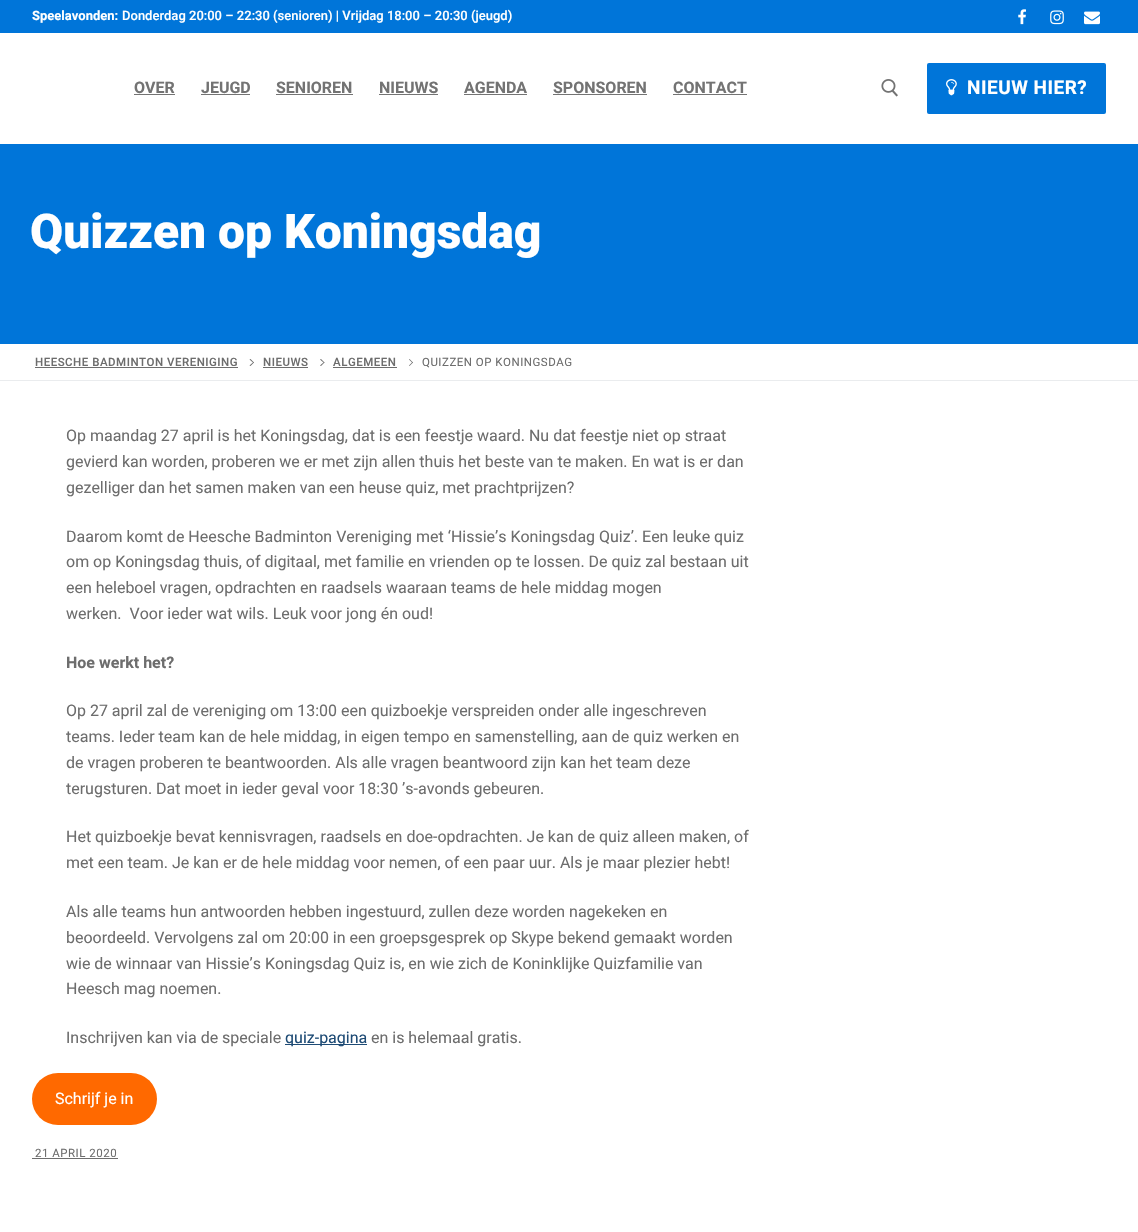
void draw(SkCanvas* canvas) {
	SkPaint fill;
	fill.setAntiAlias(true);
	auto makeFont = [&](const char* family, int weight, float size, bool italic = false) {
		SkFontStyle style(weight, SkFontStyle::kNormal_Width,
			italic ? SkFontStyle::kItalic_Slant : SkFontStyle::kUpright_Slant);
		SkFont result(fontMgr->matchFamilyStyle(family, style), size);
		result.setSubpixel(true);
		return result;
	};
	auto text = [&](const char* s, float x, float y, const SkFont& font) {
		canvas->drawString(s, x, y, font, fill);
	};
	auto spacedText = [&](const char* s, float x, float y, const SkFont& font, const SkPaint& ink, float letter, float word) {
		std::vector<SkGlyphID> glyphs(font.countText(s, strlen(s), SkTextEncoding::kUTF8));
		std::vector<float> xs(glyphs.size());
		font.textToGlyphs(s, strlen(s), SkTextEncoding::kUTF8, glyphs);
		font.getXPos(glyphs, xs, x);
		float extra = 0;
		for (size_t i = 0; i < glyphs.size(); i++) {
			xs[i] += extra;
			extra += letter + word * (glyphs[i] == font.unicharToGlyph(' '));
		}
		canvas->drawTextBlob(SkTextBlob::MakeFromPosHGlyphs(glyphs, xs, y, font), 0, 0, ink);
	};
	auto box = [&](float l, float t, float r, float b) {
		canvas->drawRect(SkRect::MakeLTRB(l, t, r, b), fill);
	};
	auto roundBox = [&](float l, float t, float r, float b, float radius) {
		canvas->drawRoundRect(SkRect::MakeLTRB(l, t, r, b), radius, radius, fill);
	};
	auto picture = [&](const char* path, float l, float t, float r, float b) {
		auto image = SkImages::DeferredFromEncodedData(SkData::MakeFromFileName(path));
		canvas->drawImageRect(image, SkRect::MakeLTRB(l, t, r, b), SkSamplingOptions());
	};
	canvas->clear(0xFFFFFFFF);
	fill.setColor(0xFF0075D9);
	box(0, 0, 1138, 33);
	picture("image0.png", 1018, 9, 1026, 25);
	picture("image1.png", 1050, 10, 1064, 25);
	picture("image2.png", 1084, 11, 1100, 25);
	fill.setColor(0xFF737373);
	box(134, 94, 175, 95);
	box(201, 94, 250, 95);
	box(276, 94, 353, 95);
	box(379, 94, 438, 95);
	box(464, 94, 527, 95);
	box(553, 94, 647, 95);
	box(673, 94, 747, 95);
	picture("image3.png", 881, 79, 898, 97);
	fill.setColor(0xFF0075D9);
	roundBox(927, 63, 1106, 114, 2);
	picture("image4.png", 946, 79, 957, 96);
	box(0, 144, 1138, 344);
	fill.setColor(0xFFEAECEE);
	box(0, 380, 1138, 381);
	fill.setColor(0xFF6D6D6D);
	box(35, 367, 238, 368);
	canvas->drawPath(SkPathBuilder().moveTo(254, 362.5f).lineTo(250.5f, 366).lineTo(249.5f, 365.5f).lineTo(253.5f, 362).close().detach(), fill);
	canvas->drawPath(SkPathBuilder().moveTo(254, 362.5f).lineTo(253.5f, 363).lineTo(249.5f, 359.5f).lineTo(250.5f, 359).close().detach(), fill);
	box(263, 367, 308, 368);
	canvas->drawPath(SkPathBuilder().moveTo(324.5f, 362.5f).lineTo(321, 366).lineTo(320, 365.5f).lineTo(324, 362).close().detach(), fill);
	canvas->drawPath(SkPathBuilder().moveTo(324.5f, 362.5f).lineTo(324, 363).lineTo(320, 359.5f).lineTo(321, 359).close().detach(), fill);
	box(333, 367, 397, 368);
	canvas->drawPath(SkPathBuilder().moveTo(413, 362.5f).lineTo(409.5f, 366).lineTo(409, 365.5f).lineTo(412.5f, 362).close().detach(), fill);
	canvas->drawPath(SkPathBuilder().moveTo(413, 362.5f).lineTo(412.5f, 363).lineTo(409, 359.5f).lineTo(409.5f, 359).close().detach(), fill);
	fill.setColor(0xFF1E4B75);
	box(285, 1044, 367, 1045);
	fill.setColor(0xFFFF6900);
	roundBox(32, 1073, 157, 1125, 26);
	fill.setColor(0xFF6D6D6D);
	box(32, 1158, 118, 1159);
	auto font1 = makeFont("Roboto", 700, 13);
	fill.setColor(0xFFFFFFFF);
	text("Speelavonden:", 32, 20, font1);
	auto font2 = makeFont("Roboto", 500, 13);
	text("Donderdag 20:00 – 22:30 (senioren) | Vrijdag 18:00 – 20:30 (jeugd)", 122, 20, font2);
	auto font3 = makeFont("Roboto", 700, 16);
	fill.setColor(0xFF737373);
	text("OVER", 134, 93, font3);
	text("JEUGD", 201, 93, font3);
	text("SENIOREN", 276, 93, font3);
	text("NIEUWS", 379, 93, font3);
	text("AGENDA", 464, 93, font3);
	text("SPONSOREN", 553, 93, font3);
	text("CONTACT", 673, 93, font3);
	auto font4 = makeFont("Roboto", 700, 19);
	fill.setColor(0xFFFFFFFF);
	spacedText("NIEUW HIER?", 967, 94, font4, fill, 0.5f, 0);
	auto font5 = makeFont("Roboto", 900, 48);
	text("Quizzen op Koningsdag", 30, 248, font5);
	auto font6 = makeFont("Roboto", 500, 11.5f);
	fill.setColor(0xFF6D6D6D);
	spacedText("HEESCHE BADMINTON VERENIGING", 35, 366, font6, fill, 0.5f, 0);
	spacedText("NIEUWS", 263, 366, font6, fill, 0.5f, 0);
	spacedText("ALGEMEEN", 333, 366, font6, fill, 0.5f, 0);
	auto font7 = makeFont("Roboto", 400, 11.5f);
	spacedText("QUIZZEN OP KONINGSDAG", 422, 366, font7, fill, 0.5f, 0);
	auto font8 = makeFont("Roboto", 400, 16);
	text("Op maandag 27 april is het Koningsdag, dat is een feestje waard. Nu dat feestje niet op straat", 66, 441, font8);
	text("gevierd kan worden, proberen we er met zijn allen thuis het beste van te maken. En wat is er dan", 66, 467, font8);
	text("gezelliger dan het samen maken van een heuse quiz, met prachtprijzen?", 66, 493, font8);
	text("Daarom komt de Heesche Badminton Vereniging met ‘Hissie’s Koningsdag Quiz’. Een leuke quiz", 66, 542, font8);
	text("om op Koningsdag thuis, of digitaal, met familie en vrienden op te lossen. De quiz zal bestaan uit", 66, 567, font8);
	text("een heleboel vragen, opdrachten en raadsels waaraan teams de hele middag mogen", 66, 593, font8);
	text("werken.  Voor ieder wat wils. Leuk voor jong én oud!", 66, 619, font8);
	text("Hoe werkt het?", 66, 668, font3);
	text("Op 27 april zal de vereniging om 13:00 een quizboekje verspreiden onder alle ingeschreven", 66, 716, font8);
	text("teams. Ieder team kan de hele middag, in eigen tempo en samenstelling, aan de quiz werken en", 66, 742, font8);
	text("de vragen proberen te beantwoorden. Als alle vragen beantwoord zijn kan het team deze", 66, 768, font8);
	text("terugsturen. Dat moet in ieder geval voor 18:30 ’s-avonds gebeuren.", 66, 794, font8);
	text("Het quizboekje bevat kennisvragen, raadsels en doe-opdrachten. Je kan de quiz alleen maken, of", 66, 842, font8);
	text("met een team. Je kan er de hele middag voor nemen, of een paar uur. Als je maar plezier hebt!", 66, 868, font8);
	text("Als alle teams hun antwoorden hebben ingestuurd, zullen deze worden nagekeken en", 66, 917, font8);
	text("beoordeeld. Vervolgens zal om 20:00 in een groepsgesprek op Skype bekend gemaakt worden", 66, 943, font8);
	text("wie de winnaar van Hissie’s Koningsdag Quiz is, en wie zich de Koninklijke Quizfamilie van", 66, 969, font8);
	text("Heesch mag noemen.", 66, 994, font8);
	text("Inschrijven kan via de speciale", 66, 1043, font8);
	fill.setColor(0xFF1E4B75);
	text("quiz-pagina", 285, 1043, font8);
	fill.setColor(0xFF6D6D6D);
	text("en is helemaal gratis.", 371, 1043, font8);
	fill.setColor(0xFFFFFFFF);
	text("Schrijf je in", 55, 1104, font8);
	fill.setColor(0xFF6D6D6D);
	spacedText("21 APRIL 2020", 35, 1157, font7, fill, 0.5f, 0);
}
